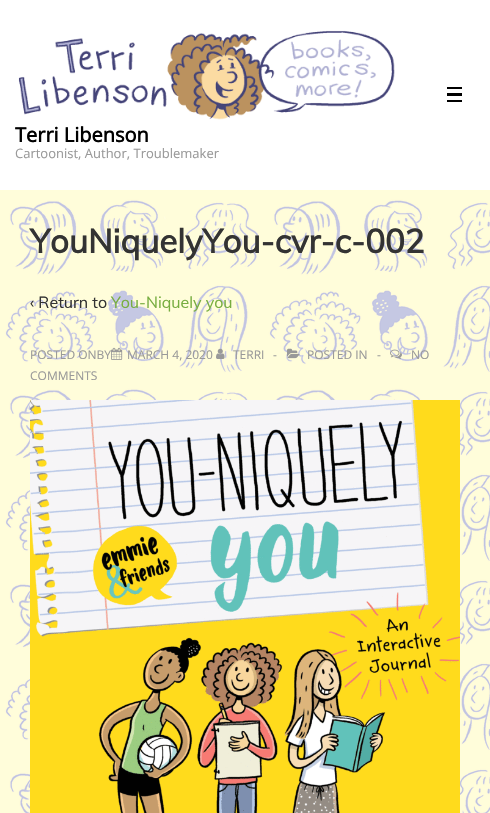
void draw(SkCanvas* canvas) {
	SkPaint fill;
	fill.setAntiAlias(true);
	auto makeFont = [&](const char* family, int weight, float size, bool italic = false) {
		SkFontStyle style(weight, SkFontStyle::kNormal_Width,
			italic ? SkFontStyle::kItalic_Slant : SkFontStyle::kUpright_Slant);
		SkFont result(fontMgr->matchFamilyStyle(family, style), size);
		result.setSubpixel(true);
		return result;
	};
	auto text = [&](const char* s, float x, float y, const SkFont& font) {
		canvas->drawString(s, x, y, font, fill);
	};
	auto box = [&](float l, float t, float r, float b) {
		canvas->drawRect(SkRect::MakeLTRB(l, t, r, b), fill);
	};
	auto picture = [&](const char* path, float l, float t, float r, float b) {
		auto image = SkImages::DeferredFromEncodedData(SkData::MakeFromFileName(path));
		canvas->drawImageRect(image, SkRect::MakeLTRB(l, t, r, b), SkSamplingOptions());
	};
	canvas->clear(0xFFFFFFFF);
	picture("image0.png", 0, 190, 490, 813);
	fill.setColor(0xFF000000);
	box(447, 87, 462, 89);
	box(447, 93, 462, 96);
	box(447, 100, 462, 102);
	picture("image1.png", 18, 30, 395, 120);
	picture("image2.png", 111, 347, 123, 360);
	picture("image3.png", 216, 348, 225, 359);
	picture("image4.png", 287, 348, 300, 359);
	picture("image5.png", 390, 349, 402, 359);
	picture("image6.png", 30, 400, 460, 813);
	auto font1 = makeFont("Open Sans", 700, 20);
	text("Terri Libenson", 15, 142, font1);
	auto font2 = makeFont("Open Sans", 400, 13);
	fill.setColor(0xFF999999);
	text("Cartoonist, Author, Troublemaker", 15, 158, font2);
	auto font3 = makeFont("Muli", 700, 33);
	fill.setColor(0xFF333333);
	text("YouNiquelyYou-cvr-c-002", 30, 253, font3);
	auto font4 = makeFont("Muli", 400, 16);
	text("‹ Return to", 30, 308, font4);
	fill.setColor(0xFF77AD40);
	text("You-Niquely you", 111, 308, font4);
	auto font5 = makeFont("Open Sans", 400, 12);
	fill.setColor(0xFF999999);
	text("POSTED ONBY", 30, 359, font5);
	text("MARCH 4, 2020", 127, 359, font5);
	text("TERRI", 233, 359, font5);
	text("-", 273, 359, font5);
	text("POSTED IN", 307, 359, font5);
	text("-", 377, 359, font5);
	text("NO", 411, 359, font5);
	text("COMMENTS", 30, 380, font5);
}
